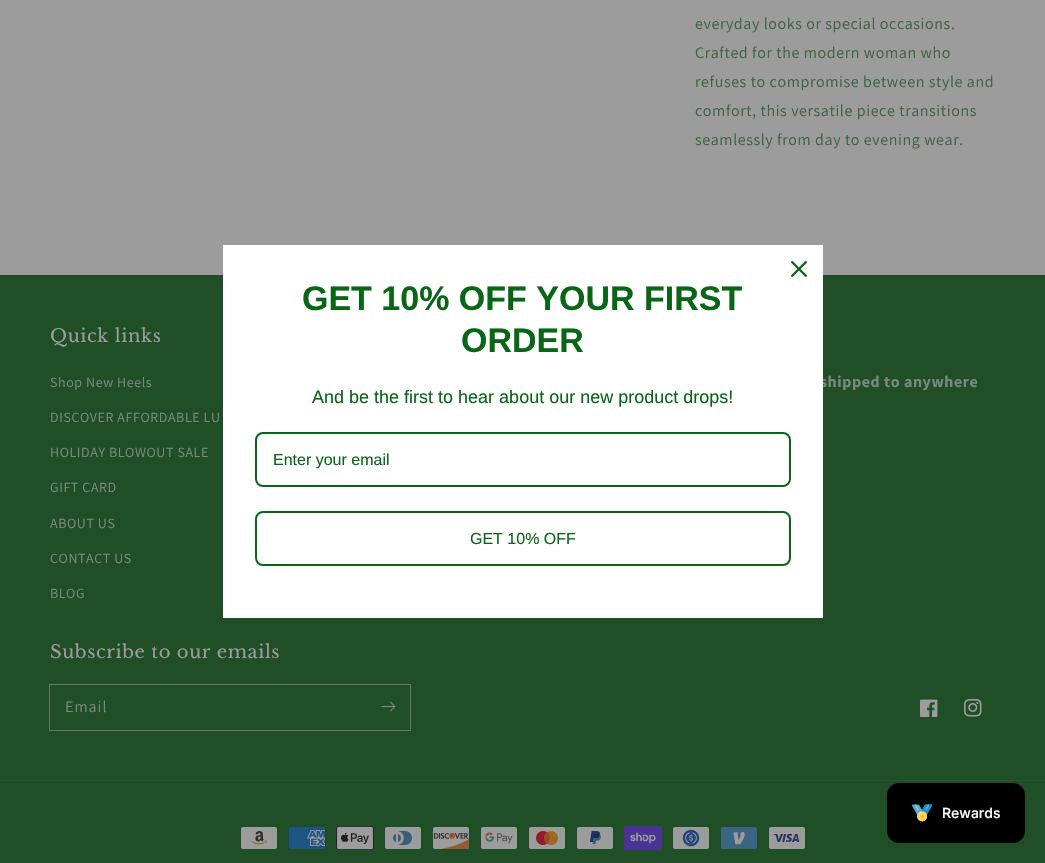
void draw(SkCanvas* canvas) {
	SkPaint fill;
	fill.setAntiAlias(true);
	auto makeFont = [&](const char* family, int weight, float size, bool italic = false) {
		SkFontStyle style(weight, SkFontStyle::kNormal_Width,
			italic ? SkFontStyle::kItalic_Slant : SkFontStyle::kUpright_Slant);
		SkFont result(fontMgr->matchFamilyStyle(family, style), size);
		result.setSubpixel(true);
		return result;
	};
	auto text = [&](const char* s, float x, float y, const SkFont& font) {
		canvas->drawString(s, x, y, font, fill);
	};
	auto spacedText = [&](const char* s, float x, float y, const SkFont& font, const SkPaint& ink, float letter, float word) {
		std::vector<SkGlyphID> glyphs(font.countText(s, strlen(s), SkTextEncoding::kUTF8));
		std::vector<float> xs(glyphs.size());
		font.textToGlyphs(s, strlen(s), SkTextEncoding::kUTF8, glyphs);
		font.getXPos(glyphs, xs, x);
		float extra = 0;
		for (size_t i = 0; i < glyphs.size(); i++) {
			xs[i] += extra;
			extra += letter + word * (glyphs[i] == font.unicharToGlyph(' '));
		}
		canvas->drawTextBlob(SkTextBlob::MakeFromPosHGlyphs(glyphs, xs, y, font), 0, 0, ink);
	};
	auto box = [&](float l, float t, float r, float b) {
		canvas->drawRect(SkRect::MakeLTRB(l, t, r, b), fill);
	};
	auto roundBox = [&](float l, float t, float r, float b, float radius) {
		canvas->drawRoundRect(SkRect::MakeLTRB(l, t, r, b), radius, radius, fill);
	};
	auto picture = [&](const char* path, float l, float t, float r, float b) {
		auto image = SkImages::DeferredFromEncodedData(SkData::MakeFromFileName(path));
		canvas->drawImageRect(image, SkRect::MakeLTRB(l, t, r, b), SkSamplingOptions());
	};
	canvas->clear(0xFF9C9C9C);
	fill.setColor(0xFF204F27);
	box(0, 275, 1045, 863);
	fill.setStyle(SkPaint::kStroke_Style);
	fill.setStrokeWidth(1);
	fill.setColor(0xFF647967);
	canvas->drawRect(SkRect::MakeLTRB(49.5f, 684.5f, 410.5f, 730.5f), fill);
	picture("image1.png", 381, 701, 396, 712);
	picture("image2.png", 920, 699, 938, 717);
	picture("image3.png", 964, 699, 982, 717);
	fill.setStyle(SkPaint::kFill_Style);
	fill.setColor(0xFF2A5531);
	box(0, 780, 1045, 781);
	picture("image4.png", 240, 826, 278, 850);
	picture("image5.png", 288, 826, 326, 850);
	picture("image6.png", 336, 826, 374, 850);
	picture("image7.png", 384, 826, 422, 850);
	picture("image8.png", 432, 826, 470, 850);
	picture("image9.png", 480, 826, 518, 850);
	picture("image10.png", 528, 826, 566, 850);
	picture("image11.png", 576, 826, 614, 850);
	picture("image12.png", 624, 826, 662, 850);
	picture("image13.png", 672, 826, 710, 850);
	picture("image14.png", 720, 826, 758, 850);
	picture("image15.png", 768, 826, 806, 850);
	fill.setColor(0xFF000000);
	roundBox(887, 783, 1025, 843, 12);
	picture("image16.png", 912, 804, 932, 822);
	auto font1 = makeFont("Assistant", 400, 16);
	fill.setColor(0xFF3F6244);
	spacedText("everyday looks or special occasions.", 695, 29, font1, fill, 0.6f, 0);
	spacedText("Crafted for the modern woman who", 695, 58, font1, fill, 0.6f, 0);
	spacedText("refuses to compromise between style and", 695, 87, font1, fill, 0.6f, 0);
	spacedText("comfort, this versatile piece transitions", 695, 116, font1, fill, 0.6f, 0);
	spacedText("seamlessly from day to evening wear.", 695, 145, font1, fill, 0.6f, 0);
	auto font2 = makeFont("Libre Baskerville", 400, 18);
	fill.setColor(0xFF9C9C9C);
	spacedText("Quick links", 50, 342, font2, fill, 0.6f, 0);
	auto font3 = makeFont("Assistant", 400, 14);
	fill.setColor(0xFF7D897F);
	spacedText("Shop New Heels", 50, 387, font3, fill, 0.6f, 0);
	spacedText("DISCOVER AFFORDABLE LU", 50, 422, font3, fill, 0.6f, 0);
	spacedText("HOLIDAY BLOWOUT SALE", 50, 457, font3, fill, 0.6f, 0);
	spacedText("GIFT CARD", 50, 492, font3, fill, 0.6f, 0);
	spacedText("ABOUT US", 50, 528, font3, fill, 0.6f, 0);
	spacedText("CONTACT US", 50, 563, font3, fill, 0.6f, 0);
	spacedText("BLOG", 50, 598, font3, fill, 0.6f, 0);
	auto font4 = makeFont("Assistant", 700, 16);
	spacedText("shipped to anywhere", 820, 387, font4, fill, 0.6f, 0);
	fill.setColor(0xFFFFFFFF);
	box(223, 245, 823, 618);
	picture("image0.png", 791, 261, 807, 277);
	fill.setStyle(SkPaint::kStroke_Style);
	fill.setStrokeWidth(2);
	fill.setColor(0xFF096616);
	canvas->drawRoundRect(SkRect::MakeLTRB(256, 512, 790, 565), 7, 7, fill);
	auto font5 = makeFont("Liberation Sans", 400, 16);
	fill.setStyle(SkPaint::kFill_Style);
	text("GET 10% OFF", 470, 544, font5);
	fill.setStyle(SkPaint::kStroke_Style);
	canvas->drawRoundRect(SkRect::MakeLTRB(256, 433, 790, 486), 7, 7, fill);
	fill.setStyle(SkPaint::kFill_Style);
	text("Enter your email", 273, 465, font5);
	auto font6 = makeFont("Liberation Sans", 400, 18);
	text("And be the first to hear about our new product drops!", 312, 403, font6);
	auto font7 = makeFont("Liberation Sans", 700, 34);
	text("ORDER", 461, 352, font7);
	text("GET 10% OFF YOUR FIRST", 302, 310, font7);
	fill.setColor(0xFF9C9C9C);
	spacedText("Subscribe to our emails", 50, 658, font2, fill, 0.6f, 0);
	fill.setColor(0xFF7D897F);
	spacedText("Email", 65, 712, font1, fill, 1, 0);
	auto font8 = makeFont("Inter", 500, 14);
	fill.setColor(0xFFFFFFFF);
	text("Rewards", 942, 818, font8);
}
